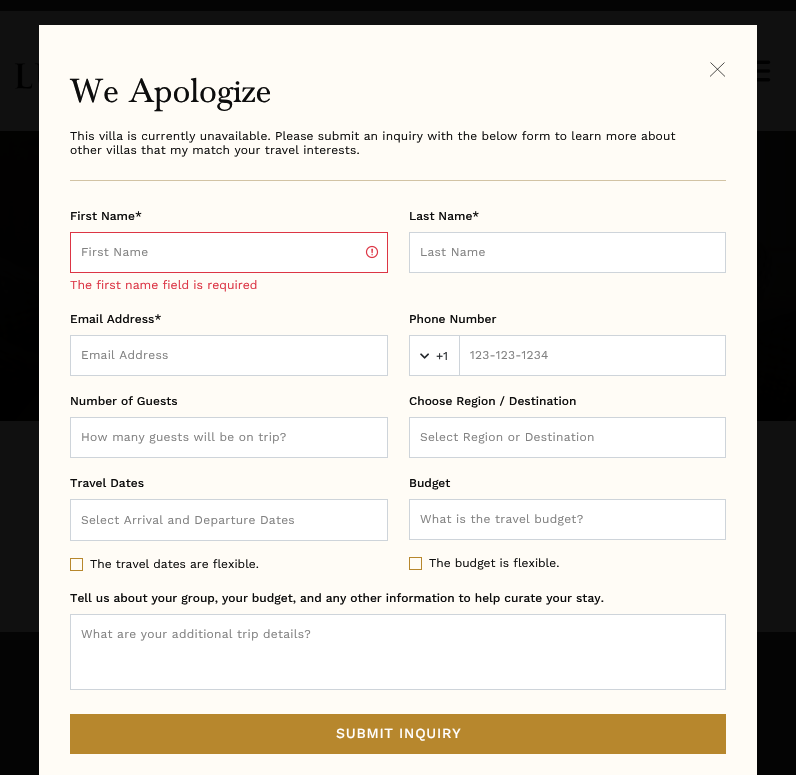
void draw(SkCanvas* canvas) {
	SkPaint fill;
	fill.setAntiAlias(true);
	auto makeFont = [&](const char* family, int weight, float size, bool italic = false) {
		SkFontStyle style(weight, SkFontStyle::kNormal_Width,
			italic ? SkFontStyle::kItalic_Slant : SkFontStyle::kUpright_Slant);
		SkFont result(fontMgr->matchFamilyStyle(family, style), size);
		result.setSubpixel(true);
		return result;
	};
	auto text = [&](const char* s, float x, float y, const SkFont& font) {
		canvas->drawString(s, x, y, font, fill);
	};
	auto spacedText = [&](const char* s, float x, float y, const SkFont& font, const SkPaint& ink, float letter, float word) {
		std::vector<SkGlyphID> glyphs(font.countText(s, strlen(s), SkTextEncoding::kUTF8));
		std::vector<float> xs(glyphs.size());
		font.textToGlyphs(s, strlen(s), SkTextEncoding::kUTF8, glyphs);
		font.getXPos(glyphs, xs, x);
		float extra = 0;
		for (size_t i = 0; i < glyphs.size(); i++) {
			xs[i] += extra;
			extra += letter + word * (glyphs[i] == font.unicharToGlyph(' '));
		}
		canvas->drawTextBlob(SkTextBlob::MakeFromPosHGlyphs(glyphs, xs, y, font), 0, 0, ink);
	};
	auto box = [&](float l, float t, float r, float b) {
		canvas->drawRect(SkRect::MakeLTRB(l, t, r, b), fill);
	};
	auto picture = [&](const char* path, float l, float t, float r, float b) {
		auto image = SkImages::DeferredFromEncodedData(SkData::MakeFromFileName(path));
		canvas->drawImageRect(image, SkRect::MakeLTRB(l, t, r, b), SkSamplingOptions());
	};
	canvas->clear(0xFF040404);
	fill.setColor(0xFF101010);
	box(0, 11, 796, 131);
	picture("image0.png", 14, 63, 39, 89);
	picture("image1.png", 757, 60, 771, 82);
	picture("image4.png", 0, 131, 796, 421);
	box(0, 421, 796, 632);
	fill.setColor(0xFFFFFCF6);
	box(39, 25, 757, 775);
	fill.setColor(0xFFD2C3A4);
	box(70, 180, 726, 181);
	fill.setStyle(SkPaint::kStroke_Style);
	fill.setStrokeWidth(0.7f);
	fill.setColor(0xFF000000);
	canvas->drawPath(SkPathBuilder().moveTo(710.5f, 62.5f).lineTo(725, 76.5f).moveTo(710, 76.5f).lineTo(724.5f, 62.5f).detach(), fill);
	fill.setStyle(SkPaint::kFill_Style);
	fill.setColor(0xFFFFFFFF);
	box(71, 233, 387, 272);
	picture("image2.png", 365, 245, 379, 259);
	fill.setStyle(SkPaint::kStroke_Style);
	fill.setStrokeWidth(1);
	fill.setColor(0xFFDC3545);
	canvas->drawRect(SkRect::MakeLTRB(70.5f, 232.5f, 387.5f, 272.5f), fill);
	fill.setStyle(SkPaint::kFill_Style);
	fill.setColor(0xFFFFFFFF);
	canvas->drawRect(SkRect::MakeLTRB(409.5f, 232.5f, 725.5f, 272.5f), fill);
	fill.setStyle(SkPaint::kStroke_Style);
	fill.setColor(0xFFCED4DA);
	canvas->drawRect(SkRect::MakeLTRB(409.5f, 232.5f, 725.5f, 272.5f), fill);
	fill.setStyle(SkPaint::kFill_Style);
	fill.setColor(0xFFFFFFFF);
	canvas->drawRect(SkRect::MakeLTRB(70.5f, 335.5f, 387.5f, 375.5f), fill);
	fill.setStyle(SkPaint::kStroke_Style);
	fill.setColor(0xFFCED4DA);
	canvas->drawRect(SkRect::MakeLTRB(70.5f, 335.5f, 387.5f, 375.5f), fill);
	fill.setStyle(SkPaint::kFill_Style);
	fill.setColor(0xFFFFFFFF);
	canvas->drawRect(SkRect::MakeLTRB(409.5f, 335.5f, 459.5f, 375.5f), fill);
	fill.setStyle(SkPaint::kStroke_Style);
	fill.setColor(0xFFCED4DA);
	canvas->drawRect(SkRect::MakeLTRB(409.5f, 335.5f, 459.5f, 375.5f), fill);
	picture("image3.png", 420, 353, 429, 359);
	fill.setStyle(SkPaint::kFill_Style);
	fill.setColor(0xFFFFFFFF);
	canvas->drawRect(SkRect::MakeLTRB(459.5f, 335.5f, 725.5f, 375.5f), fill);
	fill.setStyle(SkPaint::kStroke_Style);
	fill.setColor(0xFFCED4DA);
	canvas->drawRect(SkRect::MakeLTRB(459.5f, 335.5f, 725.5f, 375.5f), fill);
	fill.setStyle(SkPaint::kFill_Style);
	fill.setColor(0xFFFFFFFF);
	canvas->drawRect(SkRect::MakeLTRB(70.5f, 417.5f, 387.5f, 457.5f), fill);
	fill.setStyle(SkPaint::kStroke_Style);
	fill.setColor(0xFFCED4DA);
	canvas->drawRect(SkRect::MakeLTRB(70.5f, 417.5f, 387.5f, 457.5f), fill);
	fill.setStyle(SkPaint::kFill_Style);
	fill.setColor(0xFFFFFFFF);
	canvas->drawRect(SkRect::MakeLTRB(409.5f, 417.5f, 725.5f, 457.5f), fill);
	fill.setStyle(SkPaint::kStroke_Style);
	fill.setColor(0xFFCED4DA);
	canvas->drawRect(SkRect::MakeLTRB(409.5f, 417.5f, 725.5f, 457.5f), fill);
	fill.setStyle(SkPaint::kFill_Style);
	fill.setColor(0xFFFFFFFF);
	canvas->drawRect(SkRect::MakeLTRB(70.5f, 499.5f, 387.5f, 540.5f), fill);
	fill.setStyle(SkPaint::kStroke_Style);
	fill.setColor(0xFFCED4DA);
	canvas->drawRect(SkRect::MakeLTRB(70.5f, 499.5f, 387.5f, 540.5f), fill);
	fill.setColor(0xFFB7872D);
	canvas->drawRect(SkRect::MakeLTRB(70.5f, 558.5f, 82.5f, 570.5f), fill);
	fill.setStyle(SkPaint::kFill_Style);
	fill.setColor(0xFFFFFFFF);
	canvas->drawRect(SkRect::MakeLTRB(409.5f, 499.5f, 725.5f, 539.5f), fill);
	fill.setStyle(SkPaint::kStroke_Style);
	fill.setColor(0xFFCED4DA);
	canvas->drawRect(SkRect::MakeLTRB(409.5f, 499.5f, 725.5f, 539.5f), fill);
	fill.setColor(0xFFB7872D);
	canvas->drawRect(SkRect::MakeLTRB(409.5f, 557.5f, 421.5f, 569.5f), fill);
	fill.setStyle(SkPaint::kFill_Style);
	fill.setColor(0xFFFFFFFF);
	canvas->drawRect(SkRect::MakeLTRB(70.5f, 614.5f, 725.5f, 689.5f), fill);
	fill.setStyle(SkPaint::kStroke_Style);
	fill.setColor(0xFFCED4DA);
	canvas->drawRect(SkRect::MakeLTRB(70.5f, 614.5f, 725.5f, 689.5f), fill);
	fill.setStyle(SkPaint::kFill_Style);
	fill.setColor(0xFFB7872D);
	box(70, 714, 726, 754);
	auto font1 = makeFont("Baskerville", 400, 35);
	fill.setColor(0xFF0D0D0D);
	text("We Apologize", 70, 102, font1);
	auto font2 = makeFont("Work Sans", 400, 12);
	spacedText("This villa is currently unavailable. Please submit an inquiry with the below form to learn more about", 70, 140, font2, fill, 0.12f, 0);
	spacedText("other villas that my match your travel interests.", 70, 154, font2, fill, 0.12f, 0);
	auto font3 = makeFont("Work Sans", 500, 12);
	text("First Name*", 70, 220, font3);
	fill.setColor(0xFF818181);
	spacedText("First Name", 81, 256, font2, fill, 0.25f, 0);
	auto font4 = makeFont("Work Sans", 400, 12.25f);
	fill.setColor(0xFFDC3545);
	text("The first name field is required", 70, 289, font4);
	fill.setColor(0xFF0D0D0D);
	text("Last Name*", 409, 220, font3);
	fill.setColor(0xFF818181);
	spacedText("Last Name", 420, 256, font2, fill, 0.25f, 0);
	fill.setColor(0xFF0D0D0D);
	text("Email Address*", 70, 323, font3);
	fill.setColor(0xFF818181);
	spacedText("Email Address", 81, 359, font2, fill, 0.25f, 0);
	fill.setColor(0xFF0D0D0D);
	text("Phone Number", 409, 323, font3);
	fill.setColor(0xFF212529);
	text("+1", 436, 360, font2);
	fill.setColor(0xFF818181);
	spacedText("123-123-1234", 470, 359, font2, fill, 0.25f, 0);
	fill.setColor(0xFF0D0D0D);
	text("Number of Guests", 70, 405, font3);
	fill.setColor(0xFF818181);
	spacedText("How many guests will be on trip?", 81, 441, font2, fill, 0.25f, 0);
	fill.setColor(0xFF0D0D0D);
	text("Choose Region / Destination", 409, 405, font3);
	fill.setColor(0xFF818181);
	spacedText("Select Region or Destination", 420, 441, font2, fill, 0.25f, 0);
	fill.setColor(0xFF0D0D0D);
	text("Travel Dates", 70, 487, font3);
	fill.setColor(0xFF818181);
	spacedText("Select Arrival and Departure Dates", 81, 524, font2, fill, 0.25f, 0);
	fill.setColor(0xFF0D0D0D);
	text("The travel dates are flexible.", 90, 568, font2);
	text("Budget", 409, 487, font3);
	fill.setColor(0xFF818181);
	spacedText("What is the travel budget?", 420, 523, font2, fill, 0.25f, 0);
	fill.setColor(0xFF0D0D0D);
	text("The budget is flexible.", 429, 567, font2);
	text("Tell us about your group, your budget, and any other information to help curate your stay.", 70, 602, font3);
	fill.setColor(0xFF818181);
	spacedText("What are your additional trip details?", 81, 638, font2, fill, 0.25f, 0);
	auto font5 = makeFont("Work Sans", 500, 14);
	fill.setColor(0xFFFFFFFF);
	spacedText("SUBMIT INQUIRY", 336, 738, font5, fill, 0.75f, 0);
}
